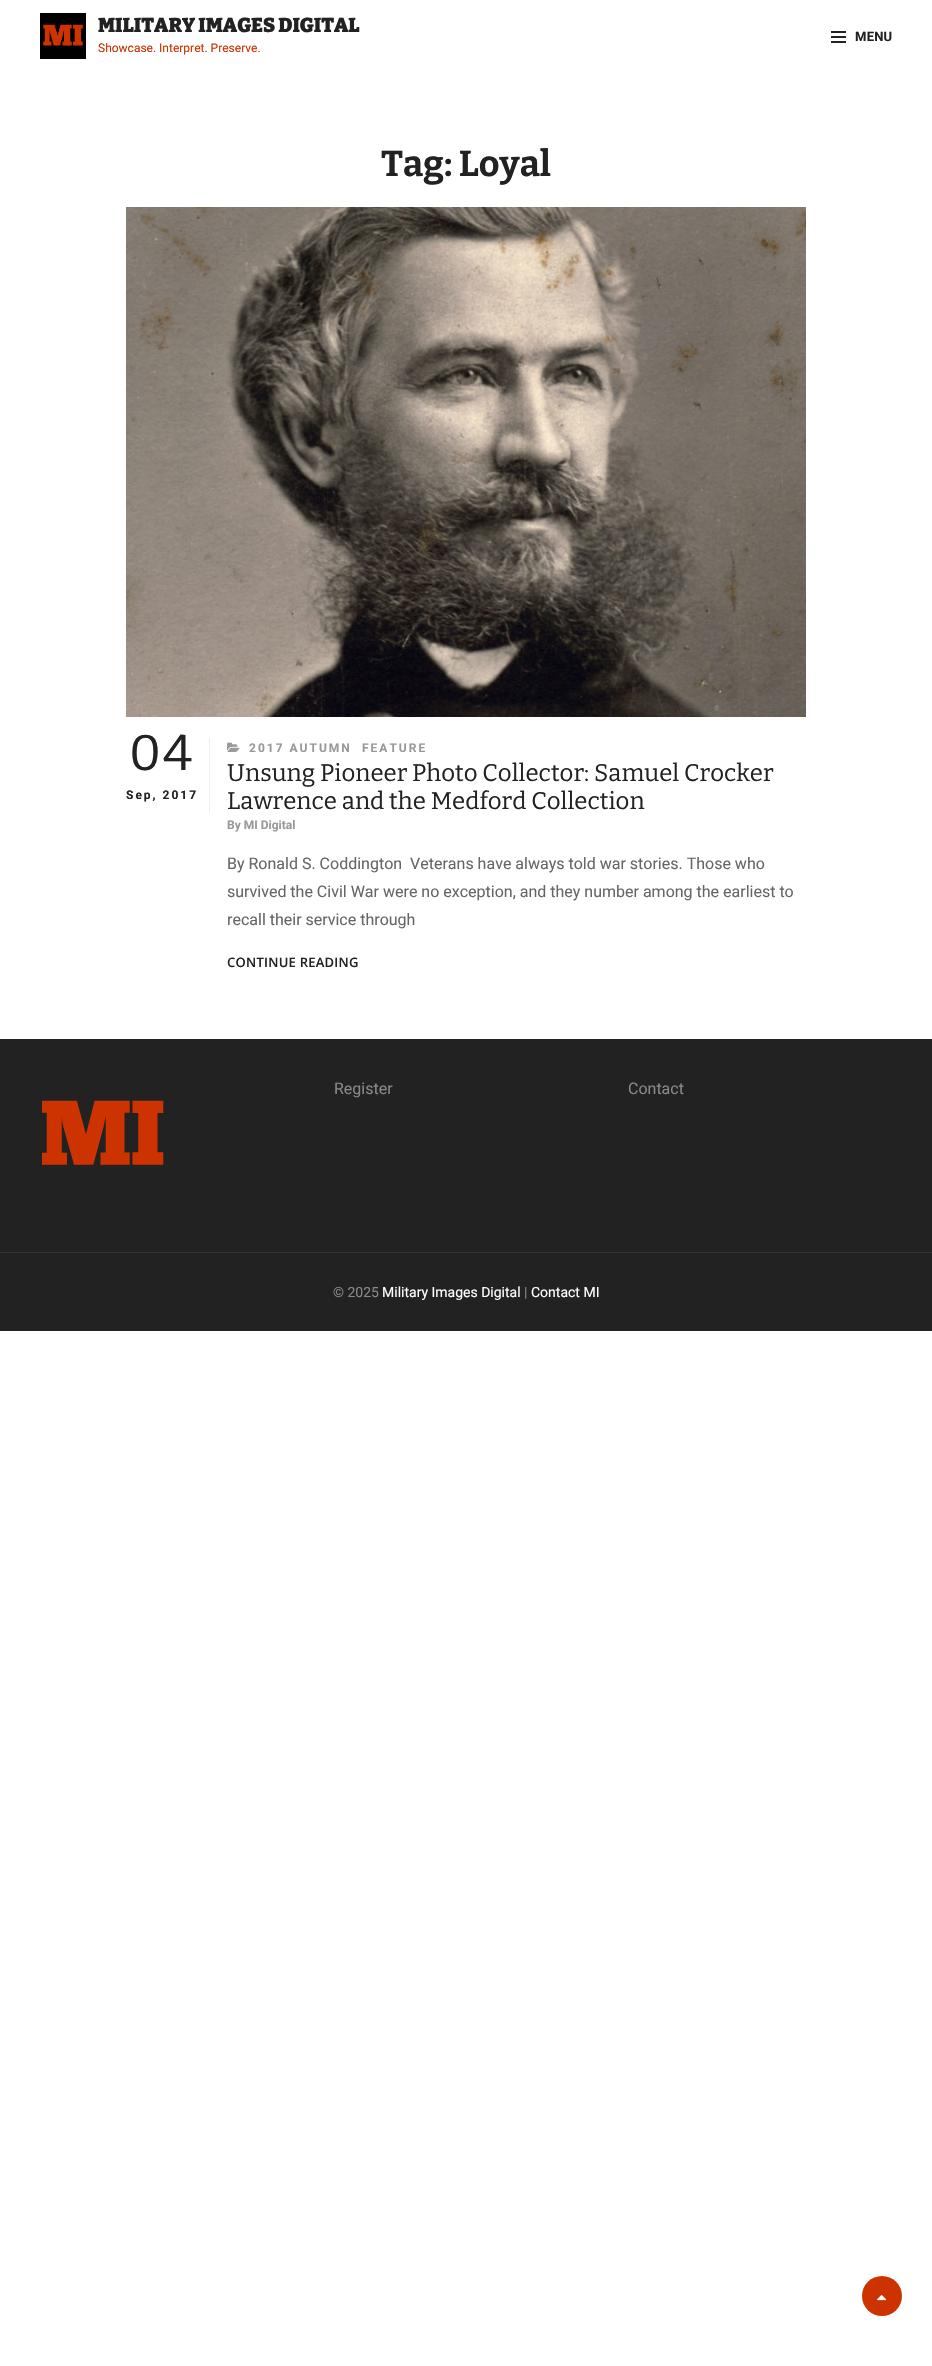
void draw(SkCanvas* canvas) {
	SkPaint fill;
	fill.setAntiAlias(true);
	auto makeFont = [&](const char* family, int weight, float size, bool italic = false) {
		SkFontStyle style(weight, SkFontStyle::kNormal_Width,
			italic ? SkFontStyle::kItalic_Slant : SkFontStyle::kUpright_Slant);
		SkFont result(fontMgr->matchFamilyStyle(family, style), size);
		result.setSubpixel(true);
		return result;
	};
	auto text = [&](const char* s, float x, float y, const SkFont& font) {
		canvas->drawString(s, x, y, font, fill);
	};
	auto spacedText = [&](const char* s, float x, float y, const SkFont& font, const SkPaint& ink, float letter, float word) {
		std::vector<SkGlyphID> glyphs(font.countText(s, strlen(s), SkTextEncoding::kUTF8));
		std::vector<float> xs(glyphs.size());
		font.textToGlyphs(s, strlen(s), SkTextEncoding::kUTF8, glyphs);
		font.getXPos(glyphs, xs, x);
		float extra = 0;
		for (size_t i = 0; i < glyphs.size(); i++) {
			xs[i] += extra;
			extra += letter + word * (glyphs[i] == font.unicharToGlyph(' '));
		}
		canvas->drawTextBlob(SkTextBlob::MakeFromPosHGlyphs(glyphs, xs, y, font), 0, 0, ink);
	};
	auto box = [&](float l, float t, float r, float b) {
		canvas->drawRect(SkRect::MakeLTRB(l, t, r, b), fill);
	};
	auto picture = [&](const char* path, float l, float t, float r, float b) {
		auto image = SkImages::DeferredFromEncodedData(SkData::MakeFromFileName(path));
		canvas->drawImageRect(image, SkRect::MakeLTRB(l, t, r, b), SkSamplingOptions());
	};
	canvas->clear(0xFFFFFFFF);
	picture("image0.png", 40, 13, 86, 59);
	fill.setColor(0xFF222222);
	box(831, 31, 846, 33);
	box(831, 36, 846, 38);
	box(831, 41, 846, 43);
	picture("image1.png", 126, 207, 806, 717);
	fill.setColor(0xFFEEEEEE);
	box(209, 738, 210, 813);
	picture("image2.png", 227, 742, 240, 752);
	fill.setColor(0xFF222222);
	box(0, 1039, 932, 1331);
	picture("image3.png", 42, 1100, 164, 1165);
	fill.setColor(0xFF363636);
	box(0, 1252, 932, 1253);
	fill.setColor(0xFFCC3300);
	canvas->drawCircle(882, 2296, 20, fill);
	picture("image4.png", 877, 2295, 887, 2301);
	auto font1 = makeFont("Bitter", 900, 20);
	fill.setColor(0xFF222222);
	text("MILITARY IMAGES DIGITAL", 98, 32, font1);
	auto font2 = makeFont("Roboto", 400, 12);
	fill.setColor(0xFFCC3300);
	text("Showcase. Interpret. Preserve.", 98, 52, font2);
	auto font3 = makeFont("Roboto", 700, 13);
	fill.setColor(0xFF222222);
	spacedText("MENU", 855, 41, font3, fill, 0.25f, 0);
	auto font4 = makeFont("Bitter", 700, 36);
	text("Tag: Loyal", 381, 176, font4);
	auto font5 = makeFont("Bitter", 400, 50);
	spacedText("04", 129, 770, font5, fill, 2, 0);
	auto font6 = makeFont("Roboto", 700, 12);
	spacedText("Sep, 2017", 126, 799, font6, fill, 2, 0);
	fill.setColor(0xFF999999);
	spacedText("2017 AUTUMN", 249, 752, font6, fill, 2, 0);
	spacedText("FEATURE", 362, 752, font6, fill, 2, 0);
	auto font7 = makeFont("Bitter", 400, 24);
	fill.setColor(0xFF222222);
	text("Unsung Pioneer Photo Collector: Samuel Crocker", 227, 781, font7);
	text("Lawrence and the Medford Collection", 227, 809, font7);
	fill.setColor(0xFF999999);
	text("By MI Digital", 227, 829, font6);
	auto font8 = makeFont("Roboto", 400, 16);
	fill.setColor(0xFF666666);
	text("By Ronald S. Coddington  Veterans have always told war stories. Those who", 227, 869, font8);
	text("survived the Civil War were no exception, and they number among the earliest to", 227, 897, font8);
	text("recall their service through", 227, 925, font8);
	auto font9 = makeFont("Open Sans", 600, 13);
	fill.setColor(0xFF222222);
	spacedText("CONTINUE READING", 227, 967, font9, fill, 0.25f, 0);
	fill.setColor(0xFF888888);
	text("Register", 334, 1094, font8);
	text("Contact", 628, 1094, font8);
	auto font10 = makeFont("Roboto", 400, 14);
	text("© 2025", 333, 1297, font10);
	fill.setColor(0xFFFFFFFF);
	text("Military Images Digital", 382, 1297, font10);
	fill.setColor(0xFF888888);
	text("|", 524, 1297, font10);
	fill.setColor(0xFFFFFFFF);
	text("Contact MI", 531, 1297, font10);
}
